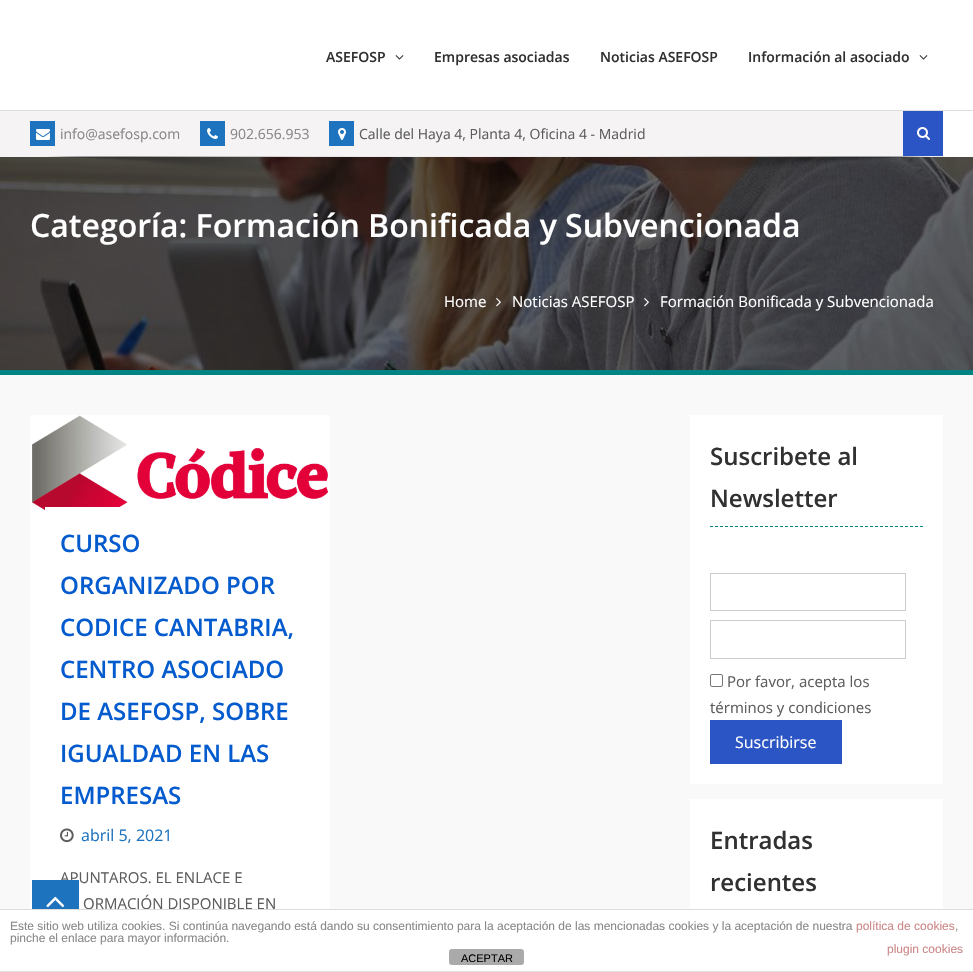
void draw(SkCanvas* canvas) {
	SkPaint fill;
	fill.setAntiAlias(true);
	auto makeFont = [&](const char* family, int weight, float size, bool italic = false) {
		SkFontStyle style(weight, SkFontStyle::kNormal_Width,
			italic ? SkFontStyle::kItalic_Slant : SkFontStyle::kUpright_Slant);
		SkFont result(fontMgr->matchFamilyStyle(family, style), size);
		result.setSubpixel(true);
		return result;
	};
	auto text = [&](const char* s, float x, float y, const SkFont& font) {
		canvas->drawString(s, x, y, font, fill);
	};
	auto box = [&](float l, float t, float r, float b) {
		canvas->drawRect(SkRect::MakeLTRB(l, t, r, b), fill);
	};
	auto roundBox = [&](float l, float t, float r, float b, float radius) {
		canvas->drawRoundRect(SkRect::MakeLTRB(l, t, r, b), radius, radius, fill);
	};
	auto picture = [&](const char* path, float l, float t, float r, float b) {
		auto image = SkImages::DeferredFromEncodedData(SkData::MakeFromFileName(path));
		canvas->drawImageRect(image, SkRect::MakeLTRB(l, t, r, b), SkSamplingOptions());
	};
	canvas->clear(0xFFF9F9F9);
	fill.setColor(0xFFFFFFFF);
	box(0, 0, 973, 110);
	fill.setColor(0xFFDDDDDD);
	box(0, 110, 973, 111);
	picture("image0.png", 395, 55, 404, 60);
	picture("image0.png", 919, 55, 928, 60);
	fill.setColor(0xFFF5F3F3);
	box(0, 111, 903, 157);
	fill.setColor(0xFF1E73BE);
	box(30, 121, 55, 146);
	picture("image1.png", 36, 129, 50, 140);
	box(200, 121, 225, 146);
	picture("image2.png", 207, 128, 218, 139);
	box(329, 121, 354, 146);
	picture("image3.png", 338, 128, 346, 140);
	fill.setColor(0xFFFFFFFF);
	box(943, 111, 973, 157);
	fill.setStyle(SkPaint::kStroke_Style);
	fill.setStrokeWidth(1);
	fill.setColor(0xFFEEEEEE);
	canvas->drawRect(SkRect::MakeLTRB(903.5f, 111.5f, 942.5f, 156.5f), fill);
	fill.setStyle(SkPaint::kFill_Style);
	fill.setColor(0xFF2B54C4);
	box(903, 111, 943, 156);
	picture("image4.png", 917, 127, 930, 140);
	picture("image6.png", 0, 157, 973, 370);
	picture("image5.png", 47, 156, 927, 171);
	fill.setColor(0xFF028484);
	box(0, 370, 973, 375);
	picture("image7.png", 496, 298, 501, 307);
	picture("image8.png", 644, 298, 649, 307);
	fill.setColor(0xFFFFFFFF);
	box(30, 415, 330, 909);
	picture("image9.png", 32, 415, 329, 511);
	box(45, 507, 121, 511);
	picture("image10.png", 60, 828, 74, 843);
	box(690, 415, 943, 784);
	fill.setStyle(SkPaint::kStroke_Style);
	fill.setColor(0xFF028484);
	fill.setPathEffect(SkDashPathEffect::Make({{3, 2}}, 0));
	canvas->drawPath(SkPathBuilder().moveTo(710, 526.5f).lineTo(923, 526.5f).detach(), fill);
	fill.setPathEffect(nullptr);
	fill.setColor(0xFFCCCCCC);
	canvas->drawRect(SkRect::MakeLTRB(710.5f, 573.5f, 905.5f, 610.5f), fill);
	canvas->drawRect(SkRect::MakeLTRB(710.5f, 620.5f, 905.5f, 658.5f), fill);
	fill.setColor(0xFF767676);
	canvas->drawRoundRect(SkRect::MakeLTRB(710.5f, 674.5f, 722.5f, 686.5f), 1.5f, 1.5f, fill);
	fill.setStyle(SkPaint::kFill_Style);
	fill.setColor(0xFF2B54C4);
	box(710, 720, 842, 764);
	fill.setColor(0xFFFFFFFF);
	box(690, 799, 943, 909);
	box(0, 910, 973, 971);
	fill.setColor(0xFFDDDDDD);
	box(0, 971, 973, 972);
	fill.setColor(0xFFAAAAAA);
	roundBox(449, 949, 524, 965, 3);
	auto font1 = makeFont("Open Sans", 600, 14);
	fill.setColor(0xFF313131);
	text("ASEFOSP", 326, 62, font1);
	text("Empresas asociadas", 434, 62, font1);
	text("Noticias ASEFOSP", 600, 62, font1);
	text("Información al asociado", 748, 62, font1);
	auto font2 = makeFont("Open Sans", 400, 14);
	fill.setColor(0xFF888888);
	text("info@asefosp.com", 60, 139, font2);
	text("902.656.953", 230, 139, font2);
	fill.setColor(0xFF5D5D5D);
	text("Calle del Haya 4, Planta 4, Oficina 4 - Madrid", 359, 139, font2);
	auto font3 = makeFont("Open Sans", 600, 32);
	fill.setColor(0xFFFFFFFF);
	text("Categoría: Formación Bonificada y Subvencionada", 30, 237, font3);
	auto font4 = makeFont("Open Sans", 400, 15);
	text("Home", 444, 307, font4);
	text("Noticias ASEFOSP", 512, 307, font4);
	text("Formación Bonificada y Subvencionada", 660, 307, font4);
	auto font5 = makeFont("Open Sans", 600, 24);
	fill.setColor(0xFF045BCE);
	text("CURSO", 60, 552, font5);
	text("ORGANIZADO POR", 60, 594, font5);
	text("CODICE CANTABRIA,", 60, 636, font5);
	text("CENTRO ASOCIADO", 60, 678, font5);
	text("DE ASEFOSP, SOBRE", 60, 720, font5);
	text("IGUALDAD EN LAS", 60, 762, font5);
	text("EMPRESAS", 60, 804, font5);
	auto font6 = makeFont("Open Sans", 400, 16);
	fill.setColor(0xFF1E73BE);
	text("abril 5, 2021", 81, 841, font6);
	fill.setColor(0xFF5D5D5D);
	text("APUNTAROS. EL ENLACE E", 60, 883, font4);
	text("ORMACIÓN DISPONIBLE EN", 83, 909, font4);
	fill.setColor(0xFF313131);
	text("Suscribete al", 710, 465, font5);
	text("Newsletter", 710, 507, font5);
	fill.setColor(0xFF5D5D5D);
	text("Por favor, acepta los", 727, 687, font4);
	text("términos y condiciones", 710, 713, font4);
	fill.setColor(0xFFFFFFFF);
	text("Suscribirse", 735, 748, font6);
	fill.setColor(0xFF313131);
	text("Entradas", 710, 849, font5);
	text("recientes", 710, 891, font5);
	fill.setColor(0xFF1E73BE);
	box(32, 880, 79, 909);
	picture("image11.png", 46, 896, 65, 908);
	fill.setColor(0xFFDDDDDD);
	box(0, 909, 973, 910);
	auto font7 = makeFont("Liberation Sans", 400, 12);
	fill.setColor(0xFF888888);
	text("Este sitio web utiliza cookies. Si continúa navegando está dando su consentimiento para la aceptación de las mencionadas cookies y la aceptación de nuestra", 10, 930, font7);
	fill.setColor(0xFFCC8888);
	text("política de cookies", 856, 930, font7);
	fill.setColor(0xFF888888);
	text(",", 955, 930, font7);
	text("pinche el enlace para mayor información.", 10, 942, font7);
	fill.setColor(0xFFCC8888);
	text("plugin cookies", 887, 953, font7);
	auto font8 = makeFont("Liberation Sans", 400, 11);
	fill.setColor(0xFF000000);
	text("ACEPTAR", 461, 962, font8);
}
